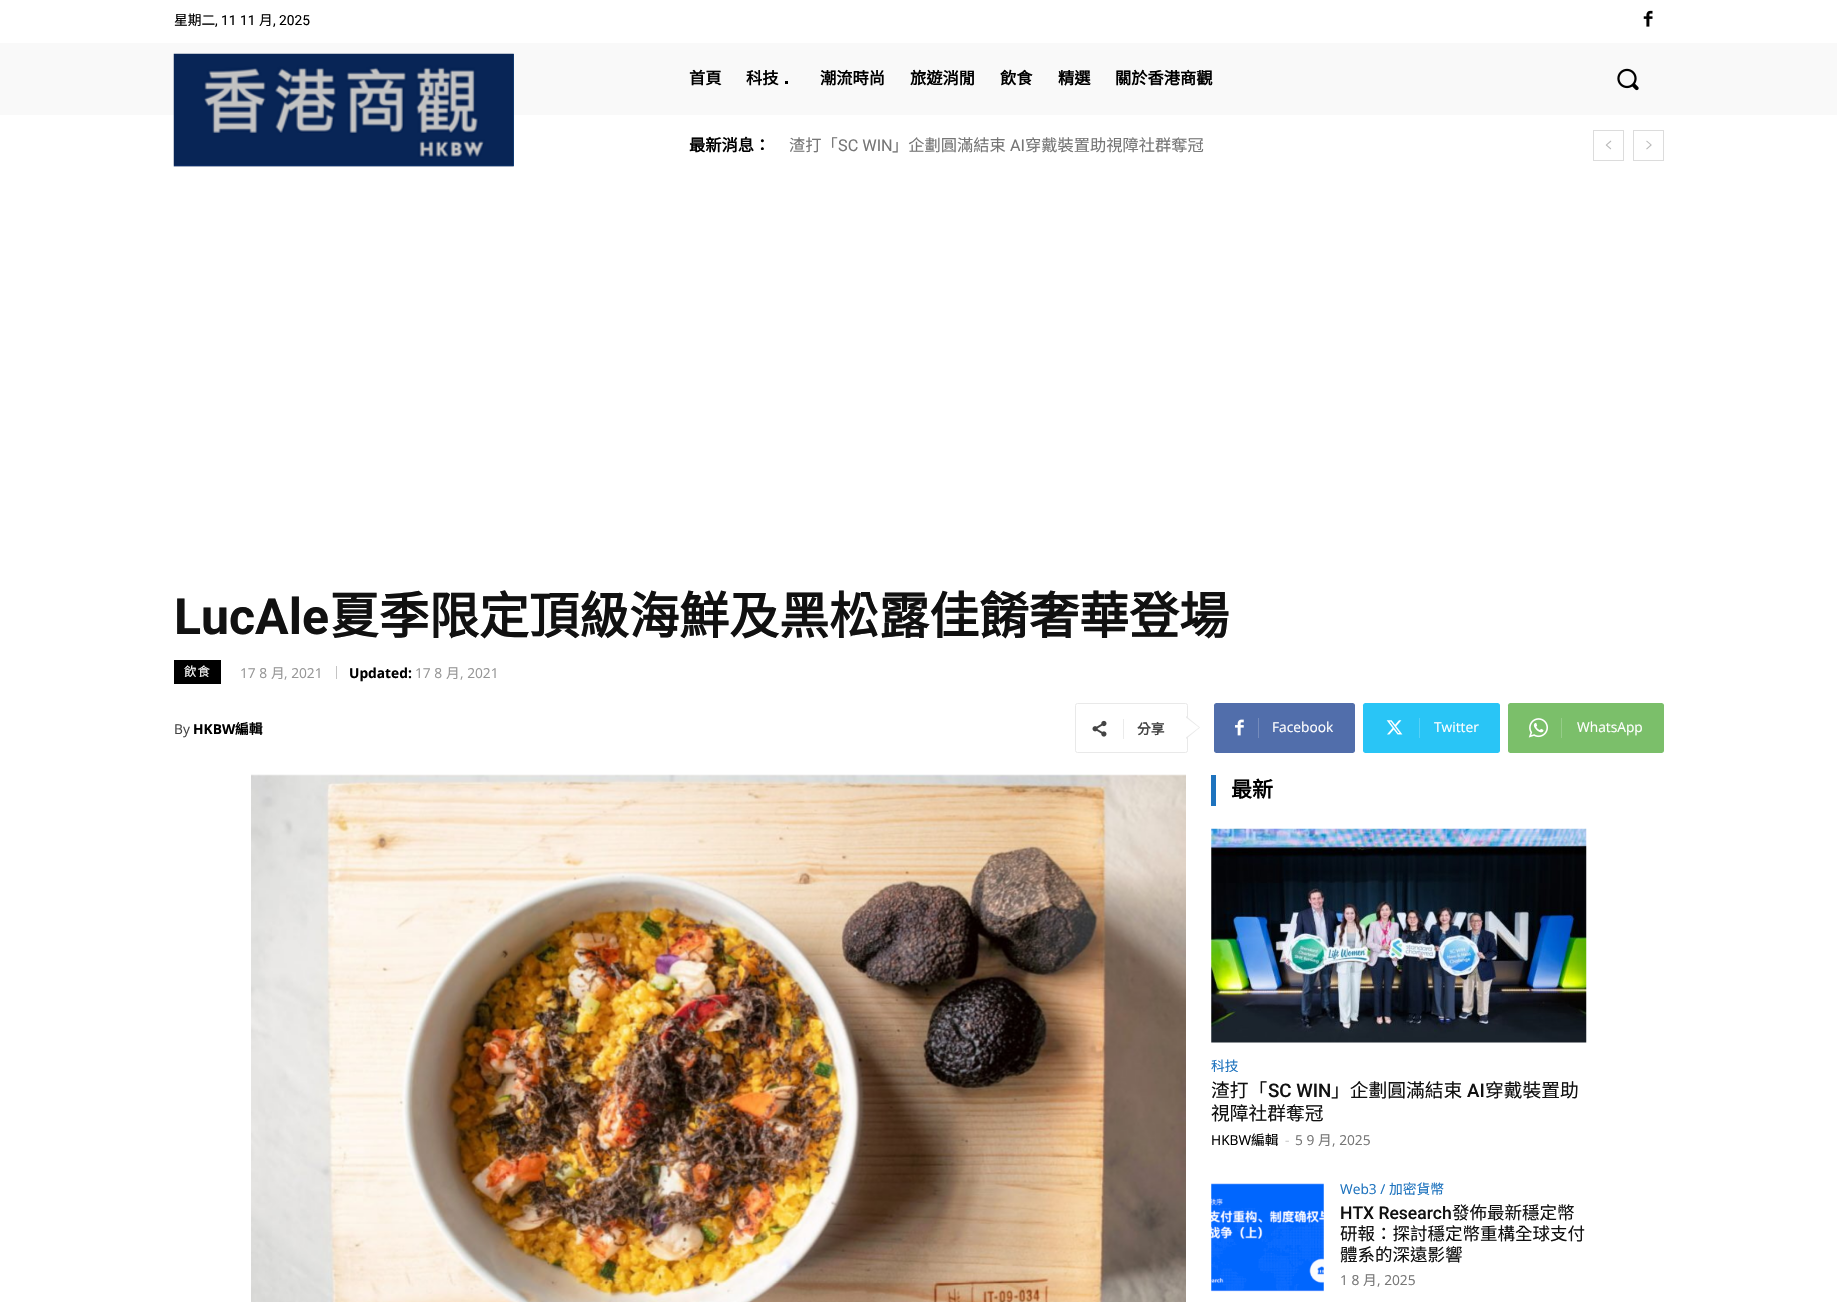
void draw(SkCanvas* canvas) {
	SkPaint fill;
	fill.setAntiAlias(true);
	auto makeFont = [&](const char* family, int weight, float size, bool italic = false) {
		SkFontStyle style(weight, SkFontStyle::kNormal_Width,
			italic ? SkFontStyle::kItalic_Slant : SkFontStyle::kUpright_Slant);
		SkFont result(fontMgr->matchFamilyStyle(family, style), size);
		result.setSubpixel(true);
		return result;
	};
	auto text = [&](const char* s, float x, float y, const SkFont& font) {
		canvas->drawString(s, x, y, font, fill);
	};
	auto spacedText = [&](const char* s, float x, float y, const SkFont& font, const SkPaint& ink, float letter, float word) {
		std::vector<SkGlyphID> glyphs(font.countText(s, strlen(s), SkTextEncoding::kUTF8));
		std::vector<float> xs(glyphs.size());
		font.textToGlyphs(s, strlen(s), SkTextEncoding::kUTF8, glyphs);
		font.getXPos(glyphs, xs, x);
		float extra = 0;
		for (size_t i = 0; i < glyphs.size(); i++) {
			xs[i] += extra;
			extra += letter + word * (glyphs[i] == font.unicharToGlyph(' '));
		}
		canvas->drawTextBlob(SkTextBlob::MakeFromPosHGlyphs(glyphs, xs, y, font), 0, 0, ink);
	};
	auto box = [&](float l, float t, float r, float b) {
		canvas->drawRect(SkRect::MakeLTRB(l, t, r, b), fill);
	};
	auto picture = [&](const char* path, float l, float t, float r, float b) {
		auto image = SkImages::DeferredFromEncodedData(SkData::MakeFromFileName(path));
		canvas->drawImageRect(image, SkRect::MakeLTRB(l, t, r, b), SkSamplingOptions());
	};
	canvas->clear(0xFFFFFFFF);
	picture("image0.png", 1643, 10, 1653, 27);
	fill.setColor(0xFFF9F9F9);
	box(0, 43, 1837, 115);
	{
		const SkColor colors[] = {0xFF1E73BE, 0xFF215AD3};
		const float stops[] = {0, 1};
		const SkPoint ends[] = {{514, 110}, {174, 110}};
		fill.setShader(SkGradientShader::MakeLinear(ends, colors, stops, 2, SkTileMode::kClamp));
		fill.setAlpha(255);
	}
	box(174, 54, 514, 166);
	picture("image1.png", 173, 53, 514, 167);
	fill.setShader(nullptr);
	fill.setColor(0xFF000000);
	box(785, 81, 788, 84);
	picture("image2.png", 1617, 68, 1639, 91);
	fill.setStyle(SkPaint::kStroke_Style);
	fill.setStrokeWidth(1);
	fill.setColor(0xFFDCDCDC);
	canvas->drawRect(SkRect::MakeLTRB(1593.5f, 130.5f, 1623.5f, 160.5f), fill);
	picture("image3.png", 1605, 140, 1612, 150);
	canvas->drawRect(SkRect::MakeLTRB(1633.5f, 130.5f, 1663.5f, 160.5f), fill);
	picture("image4.png", 1646, 140, 1652, 150);
	fill.setStyle(SkPaint::kFill_Style);
	fill.setColor(0xFF000000);
	box(174, 660, 221, 684);
	fill.setColor(0xFFC4C4C4);
	box(336, 666, 337, 679);
	fill.setStyle(SkPaint::kStroke_Style);
	fill.setColor(0xFFE9E9E9);
	canvas->drawRoundRect(SkRect::MakeLTRB(1075.5f, 703.5f, 1187.5f, 752.5f), 2, 2, fill);
	fill.setStyle(SkPaint::kFill_Style);
	canvas->drawPath(SkPathBuilder().moveTo(1186, 739).lineTo(1186, 716).lineTo(1200, 727.5f).close().detach(), fill);
	picture("image5.png", 1092, 720, 1107, 737);
	fill.setColor(0xFFEBEBEB);
	box(1123, 719, 1124, 739);
	fill.setColor(0xFFFFFFFF);
	canvas->drawPath(SkPathBuilder().moveTo(1186, 737.5f).lineTo(1186, 717.5f).lineTo(1199, 727.5f).close().detach(), fill);
	fill.setColor(0xFF516EAB);
	canvas->drawPath(SkPathBuilder().moveTo(1258, 703).lineTo(1352.5f, 703).cubicTo(1354, 703, 1355, 704, 1355, 705.5f).lineTo(1355, 750.5f).cubicTo(1355, 752, 1354, 753, 1352.5f, 753).lineTo(1258, 753).close().detach(), fill);
	canvas->drawPath(SkPathBuilder().moveTo(1216.5f, 703).lineTo(1265, 703).lineTo(1265, 753).lineTo(1216.5f, 753).cubicTo(1215, 753, 1214, 752, 1214, 750.5f).lineTo(1214, 705.5f).cubicTo(1214, 704, 1215, 703, 1216.5f, 703).close().detach(), fill);
	picture("image6.png", 1235, 719, 1244, 736);
	fill.setColor(0xFF748BBC);
	box(1258, 718, 1259, 738);
	fill.setColor(0xFF29C5F6);
	canvas->drawPath(SkPathBuilder().moveTo(1419, 703).lineTo(1497.5f, 703).cubicTo(1499, 703, 1500, 704, 1500, 705.5f).lineTo(1500, 750.5f).cubicTo(1500, 752, 1499, 753, 1497.5f, 753).lineTo(1419, 753).close().detach(), fill);
	canvas->drawPath(SkPathBuilder().moveTo(1365.5f, 703).lineTo(1426, 703).lineTo(1426, 753).lineTo(1365.5f, 753).cubicTo(1364, 753, 1363, 752, 1363, 750.5f).lineTo(1363, 705.5f).cubicTo(1363, 704, 1364, 703, 1365.5f, 703).close().detach(), fill);
	picture("image7.png", 1386, 720, 1403, 735);
	fill.setColor(0xFF54D1F8);
	box(1419, 718, 1420, 738);
	fill.setColor(0xFF7BBF6A);
	canvas->drawPath(SkPathBuilder().moveTo(1561, 703).lineTo(1661.5f, 703).cubicTo(1663, 703, 1664, 704, 1664, 705.5f).lineTo(1664, 750.5f).cubicTo(1664, 752, 1663, 753, 1661.5f, 753).lineTo(1561, 753).close().detach(), fill);
	canvas->drawPath(SkPathBuilder().moveTo(1510.5f, 703).lineTo(1569, 703).lineTo(1569, 753).lineTo(1510.5f, 753).cubicTo(1509, 753, 1508, 752, 1508, 750.5f).lineTo(1508, 705.5f).cubicTo(1508, 704, 1509, 703, 1510.5f, 703).close().detach(), fill);
	picture("image8.png", 1528, 718, 1548, 738);
	fill.setColor(0xFF95CC88);
	box(1561, 718, 1562, 738);
	picture("image9.png", 251, 774, 1186, 1302);
	fill.setColor(0xFF1E73BE);
	box(1211, 775, 1216, 806);
	picture("image10.png", 1211, 828, 1587, 1043);
	picture("image11.png", 1211, 1183, 1324, 1292);
	auto font1 = makeFont("Noto Sans CJK TC", 400, 13.75f);
	fill.setColor(0xFF000000);
	text("星期二", 174, 25, font1);
	auto font2 = makeFont("Roboto", 400, 13.75f);
	text(", 11 11", 215, 25, font2);
	text("月", 259, 25, font1);
	text(", 2025", 273, 25, font2);
	auto font3 = makeFont("Noto Sans CJK TC", 700, 16.25f);
	text("首頁", 689, 84, font3);
	text("科技", 746, 84, font3);
	text("潮流時尚", 820, 84, font3);
	text("旅遊消閒", 910, 84, font3);
	text("飲食", 1000, 84, font3);
	text("精選", 1058, 84, font3);
	text("關於香港商觀", 1115, 84, font3);
	text("最新消息：", 689, 151, font3);
	auto font4 = makeFont("Noto Sans CJK TC", 400, 16.25f);
	fill.setColor(0xFF767676);
	text("渣打「", 789, 151, font4);
	auto font5 = makeFont("Roboto", 400, 16.25f);
	text("SC WIN", 838, 151, font5);
	text("」企劃圓滿結束", 892, 151, font4);
	text("AI", 1010, 151, font5);
	text("穿戴裝置助視障社群奪冠", 1025, 151, font4);
	auto font6 = makeFont("Roboto", 700, 50);
	fill.setColor(0xFF111111);
	text("LucAle", 174, 634, font6);
	auto font7 = makeFont("Noto Sans CJK TC", 700, 50);
	text("夏季限定頂級海鮮及黑松露佳餚奢華登場", 329, 634, font7);
	auto font8 = makeFont("Noto Sans CJK TC", 400, 12.5f);
	fill.setColor(0xFFFFFFFF);
	spacedText("飲食", 184, 676, font8, fill, 1, 0);
	auto font9 = makeFont("Open Sans", 400, 13.75f);
	fill.setColor(0xFF969696);
	text("17 8", 240, 678, font9);
	text("月", 271, 678, font1);
	text(", 2021", 284, 678, font9);
	auto font10 = makeFont("Open Sans", 700, 13.75f);
	fill.setColor(0xFF000000);
	text("Updated:", 349, 678, font10);
	fill.setColor(0xFF969696);
	text("17 8", 415, 678, font9);
	text("月", 446, 678, font1);
	text(", 2021", 460, 678, font9);
	fill.setColor(0xFF444444);
	text("By", 174, 734, font9);
	fill.setColor(0xFF000000);
	text("HKBW", 193, 734, font10);
	auto font11 = makeFont("Noto Sans CJK TC", 700, 13.75f);
	text("編輯", 235, 734, font11);
	fill.setColor(0xFF444444);
	text("分享", 1137, 734, font11);
	fill.setColor(0xFFFFFFFF);
	text("Facebook", 1272, 732, font9);
	text("Twitter", 1434, 732, font9);
	text("WhatsApp", 1577, 732, font9);
	auto font12 = makeFont("Noto Sans CJK TC", 700, 21);
	fill.setColor(0xFF000000);
	text("最新", 1231, 797, font12);
	fill.setColor(0xFF1E73BE);
	text("科技", 1211, 1071, font1);
	auto font13 = makeFont("Noto Sans CJK TC", 400, 18.75f);
	fill.setColor(0xFF111111);
	text("渣打「", 1211, 1097, font13);
	auto font14 = makeFont("Roboto", 500, 18.75f);
	text("SC WIN", 1268, 1097, font14);
	text("」企劃圓滿結束", 1331, 1097, font13);
	text("AI", 1467, 1097, font14);
	text("穿戴裝置助", 1485, 1097, font13);
	text("視障社群奪冠", 1211, 1120, font13);
	fill.setColor(0xFF000000);
	text("HKBW", 1211, 1145, font9);
	text("編輯", 1251, 1145, font1);
	fill.setColor(0xFFCCCCCC);
	text("-", 1285, 1145, font9);
	fill.setColor(0xFF767676);
	text("5 9", 1295, 1145, font9);
	text("月", 1318, 1145, font1);
	text(", 2025", 1332, 1145, font9);
	fill.setColor(0xFF1E73BE);
	text("Web3 /", 1340, 1194, font9);
	text("加密貨幣", 1389, 1194, font1);
	auto font15 = makeFont("Roboto", 500, 17.5f);
	fill.setColor(0xFF111111);
	text("HTX Research", 1340, 1219, font15);
	auto font16 = makeFont("Noto Sans CJK TC", 400, 17.5f);
	text("發佈最新穩定幣", 1452, 1219, font16);
	text("研報：探討穩定幣重構全球支付", 1340, 1240, font16);
	text("體系的深遠影響", 1340, 1261, font16);
	fill.setColor(0xFF767676);
	text("1 8", 1340, 1285, font9);
	text("月", 1363, 1285, font1);
	text(", 2025", 1377, 1285, font9);
}
